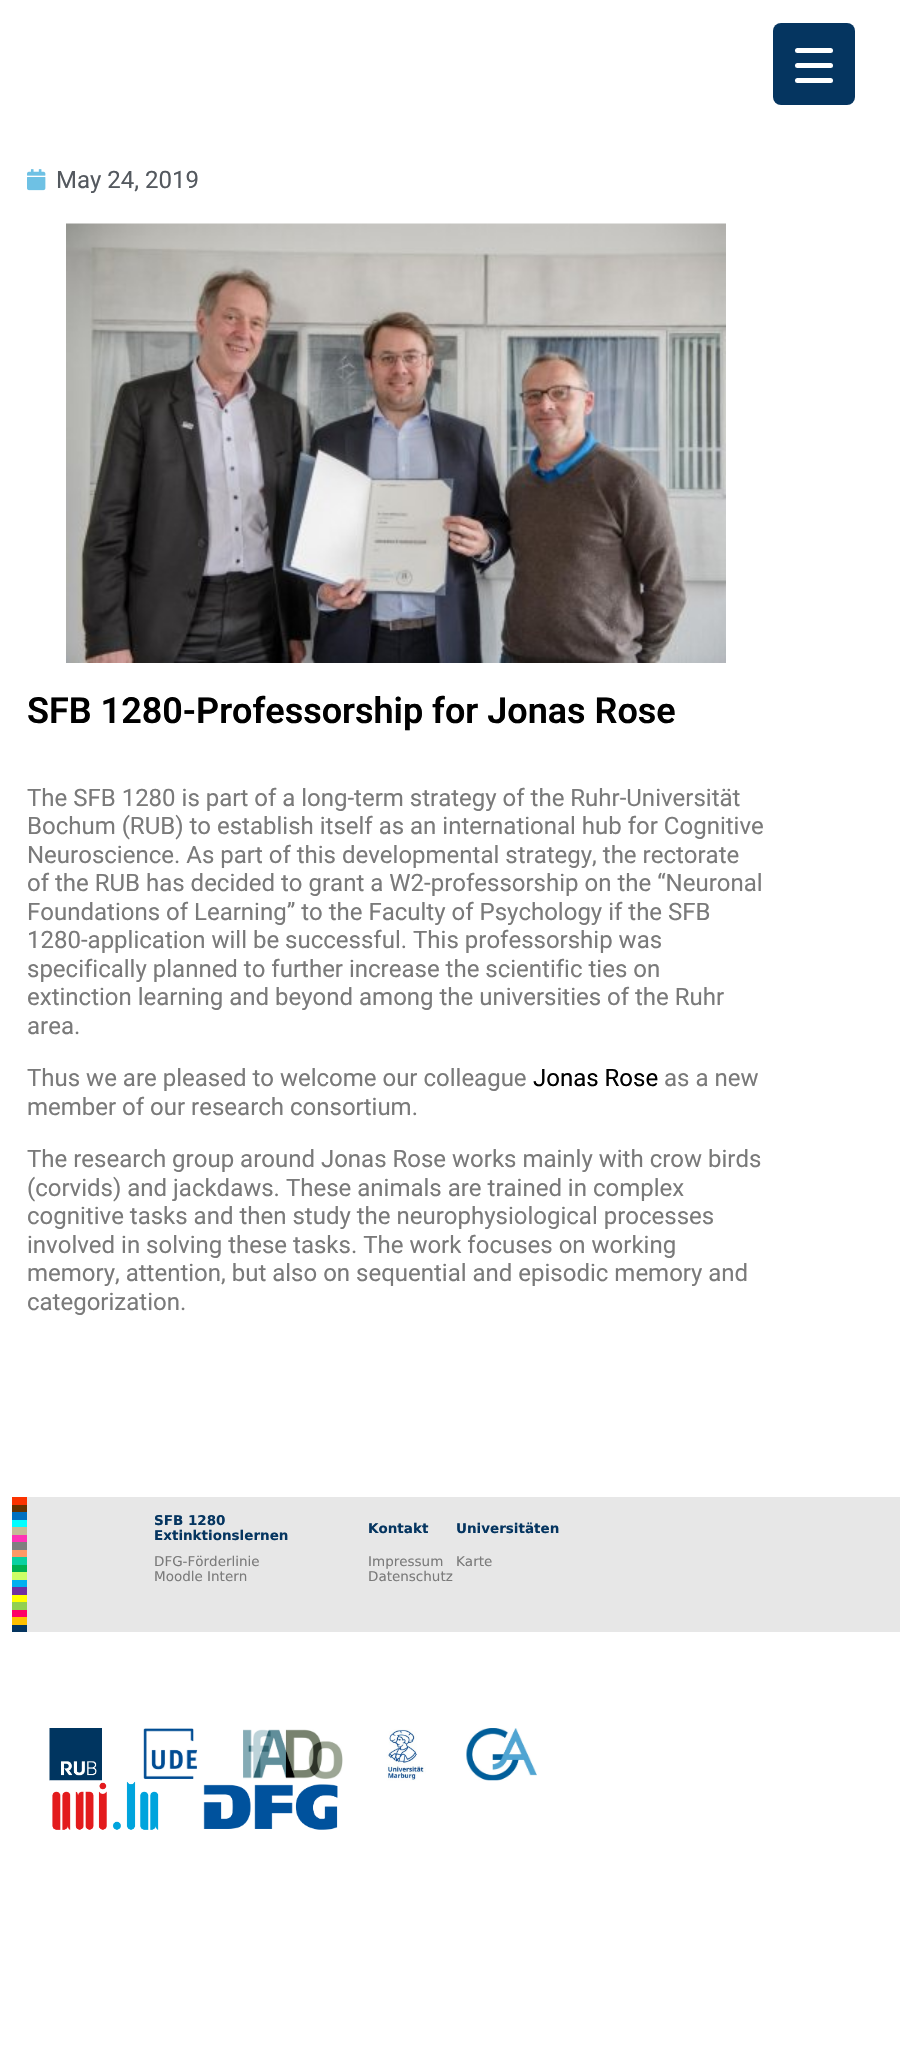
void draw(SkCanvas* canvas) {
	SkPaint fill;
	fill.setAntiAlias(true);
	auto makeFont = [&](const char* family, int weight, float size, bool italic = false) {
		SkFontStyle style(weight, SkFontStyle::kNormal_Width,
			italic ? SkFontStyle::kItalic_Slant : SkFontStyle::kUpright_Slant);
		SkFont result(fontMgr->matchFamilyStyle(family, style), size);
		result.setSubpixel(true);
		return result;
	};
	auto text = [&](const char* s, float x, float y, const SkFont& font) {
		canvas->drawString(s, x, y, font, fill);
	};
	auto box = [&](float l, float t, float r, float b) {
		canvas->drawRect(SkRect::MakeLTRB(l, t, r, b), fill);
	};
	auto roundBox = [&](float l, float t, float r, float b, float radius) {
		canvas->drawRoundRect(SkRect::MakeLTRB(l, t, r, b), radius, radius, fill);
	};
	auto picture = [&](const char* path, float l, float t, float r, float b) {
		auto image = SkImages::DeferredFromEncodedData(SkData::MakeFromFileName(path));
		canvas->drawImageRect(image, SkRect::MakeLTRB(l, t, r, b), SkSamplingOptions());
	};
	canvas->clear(0xFFFFFFFF);
	fill.setColor(0xFF053560);
	roundBox(773, 23, 855, 105, 8);
	fill.setColor(0xFFFFFFFF);
	roundBox(795, 63, 833, 68, 2.5f);
	roundBox(795, 48, 833, 53, 2.5f);
	roundBox(795, 78, 833, 83, 2.5f);
	picture("image0.png", 27, 169, 46, 191);
	picture("image1.png", 66, 223, 726, 663);
	fill.setColor(0xFFE7E7E7);
	box(27, 1497, 900, 1632);
	fill.setColor(0xFFFB3300);
	box(12, 1497, 27, 1505);
	fill.setColor(0xFF663300);
	box(12, 1505, 27, 1512);
	fill.setColor(0xFF0070C0);
	box(12, 1512, 27, 1520);
	fill.setColor(0xFF00FFFF);
	box(12, 1520, 27, 1527);
	fill.setColor(0xFFC4BC96);
	box(12, 1527, 27, 1535);
	fill.setColor(0xFFFF33B6);
	box(12, 1535, 27, 1542);
	fill.setColor(0xFF7F7F7F);
	box(12, 1542, 27, 1550);
	fill.setColor(0xFFFF9966);
	box(12, 1550, 27, 1557);
	fill.setColor(0xFF09D1A1);
	box(12, 1557, 27, 1565);
	fill.setColor(0xFF00B050);
	box(12, 1565, 27, 1572);
	fill.setColor(0xFFCCFF66);
	box(12, 1572, 27, 1580);
	fill.setColor(0xFF00B0F0);
	box(12, 1580, 27, 1587);
	fill.setColor(0xFF7030A0);
	box(12, 1587, 27, 1595);
	fill.setColor(0xFFFFFF00);
	box(12, 1595, 27, 1602);
	fill.setColor(0xFF92D050);
	box(12, 1602, 27, 1610);
	fill.setColor(0xFFFF0066);
	box(12, 1610, 27, 1617);
	fill.setColor(0xFFFFC000);
	box(12, 1617, 27, 1625);
	fill.setColor(0xFF053560);
	box(12, 1625, 27, 1632);
	picture("image2.png", 49, 1728, 102, 1781);
	picture("image3.png", 143, 1728, 198, 1779);
	picture("image4.png", 243, 1729, 343, 1779);
	picture("image5.png", 386, 1729, 426, 1781);
	picture("image6.png", 466, 1728, 537, 1781);
	picture("image7.png", 49, 1780, 159, 1830);
	fill.setColor(0x80FFFFFF);
	box(485, 1780, 501, 1781);
	picture("image8.png", 203, 1784, 338, 1830);
	auto font1 = makeFont("Roboto", 400, 24);
	fill.setColor(0xFF54595F);
	text("May 24, 2019", 56, 188, font1);
	auto font2 = makeFont("Roboto", 600, 36);
	fill.setColor(0xFF000000);
	text("SFB 1280-Professorship for Jonas Rose", 27, 723, font2);
	fill.setColor(0xFF7A7A7A);
	text("The SFB 1280 is part of a long-term strategy of the Ruhr-Universität", 27, 806, font1);
	text("Bochum (RUB) to establish itself as an international hub for Cognitive", 27, 834, font1);
	text("Neuroscience. As part of this developmental strategy, the rectorate", 27, 863, font1);
	text("of the RUB has decided to grant a W2-professorship on the “Neuronal", 27, 891, font1);
	text("Foundations of Learning” to the Faculty of Psychology if the SFB", 27, 920, font1);
	text("1280-application will be successful. This professorship was", 27, 948, font1);
	text("specifically planned to further increase the scientific ties on", 27, 977, font1);
	text("extinction learning and beyond among the universities of the Ruhr", 27, 1005, font1);
	text("area.", 27, 1034, font1);
	text("Thus we are pleased to welcome our colleague", 27, 1086, font1);
	fill.setColor(0xFF000000);
	text("Jonas Rose", 533, 1086, font1);
	fill.setColor(0xFF7A7A7A);
	text("as a new", 664, 1086, font1);
	text("member of our research consortium.", 27, 1115, font1);
	text("The research group around Jonas Rose works mainly with crow birds", 27, 1167, font1);
	text("(corvids) and jackdaws. These animals are trained in complex", 27, 1196, font1);
	text("cognitive tasks and then study the neurophysiological processes", 27, 1224, font1);
	text("involved in solving these tasks. The work focuses on working", 27, 1253, font1);
	text("memory, attention, but also on sequential and episodic memory and", 27, 1281, font1);
	text("categorization.", 27, 1310, font1);
	auto font3 = makeFont("DejaVu Sans", 700, 13.5f);
	fill.setColor(0xFF053560);
	text("SFB 1280", 154, 1525, font3);
	text("Extinktionslernen", 154, 1540, font3);
	text("Kontakt", 368, 1533, font3);
	text("Universitäten", 456, 1533, font3);
	auto font4 = makeFont("DejaVu Sans", 400, 13.5f);
	fill.setColor(0xFF7A7A7A);
	text("DFG-Förderlinie", 154, 1566, font4);
	text("Moodle Intern", 154, 1581, font4);
	text("Impressum", 368, 1566, font4);
	text("Datenschutz", 368, 1581, font4);
	text("Karte", 456, 1566, font4);
}
